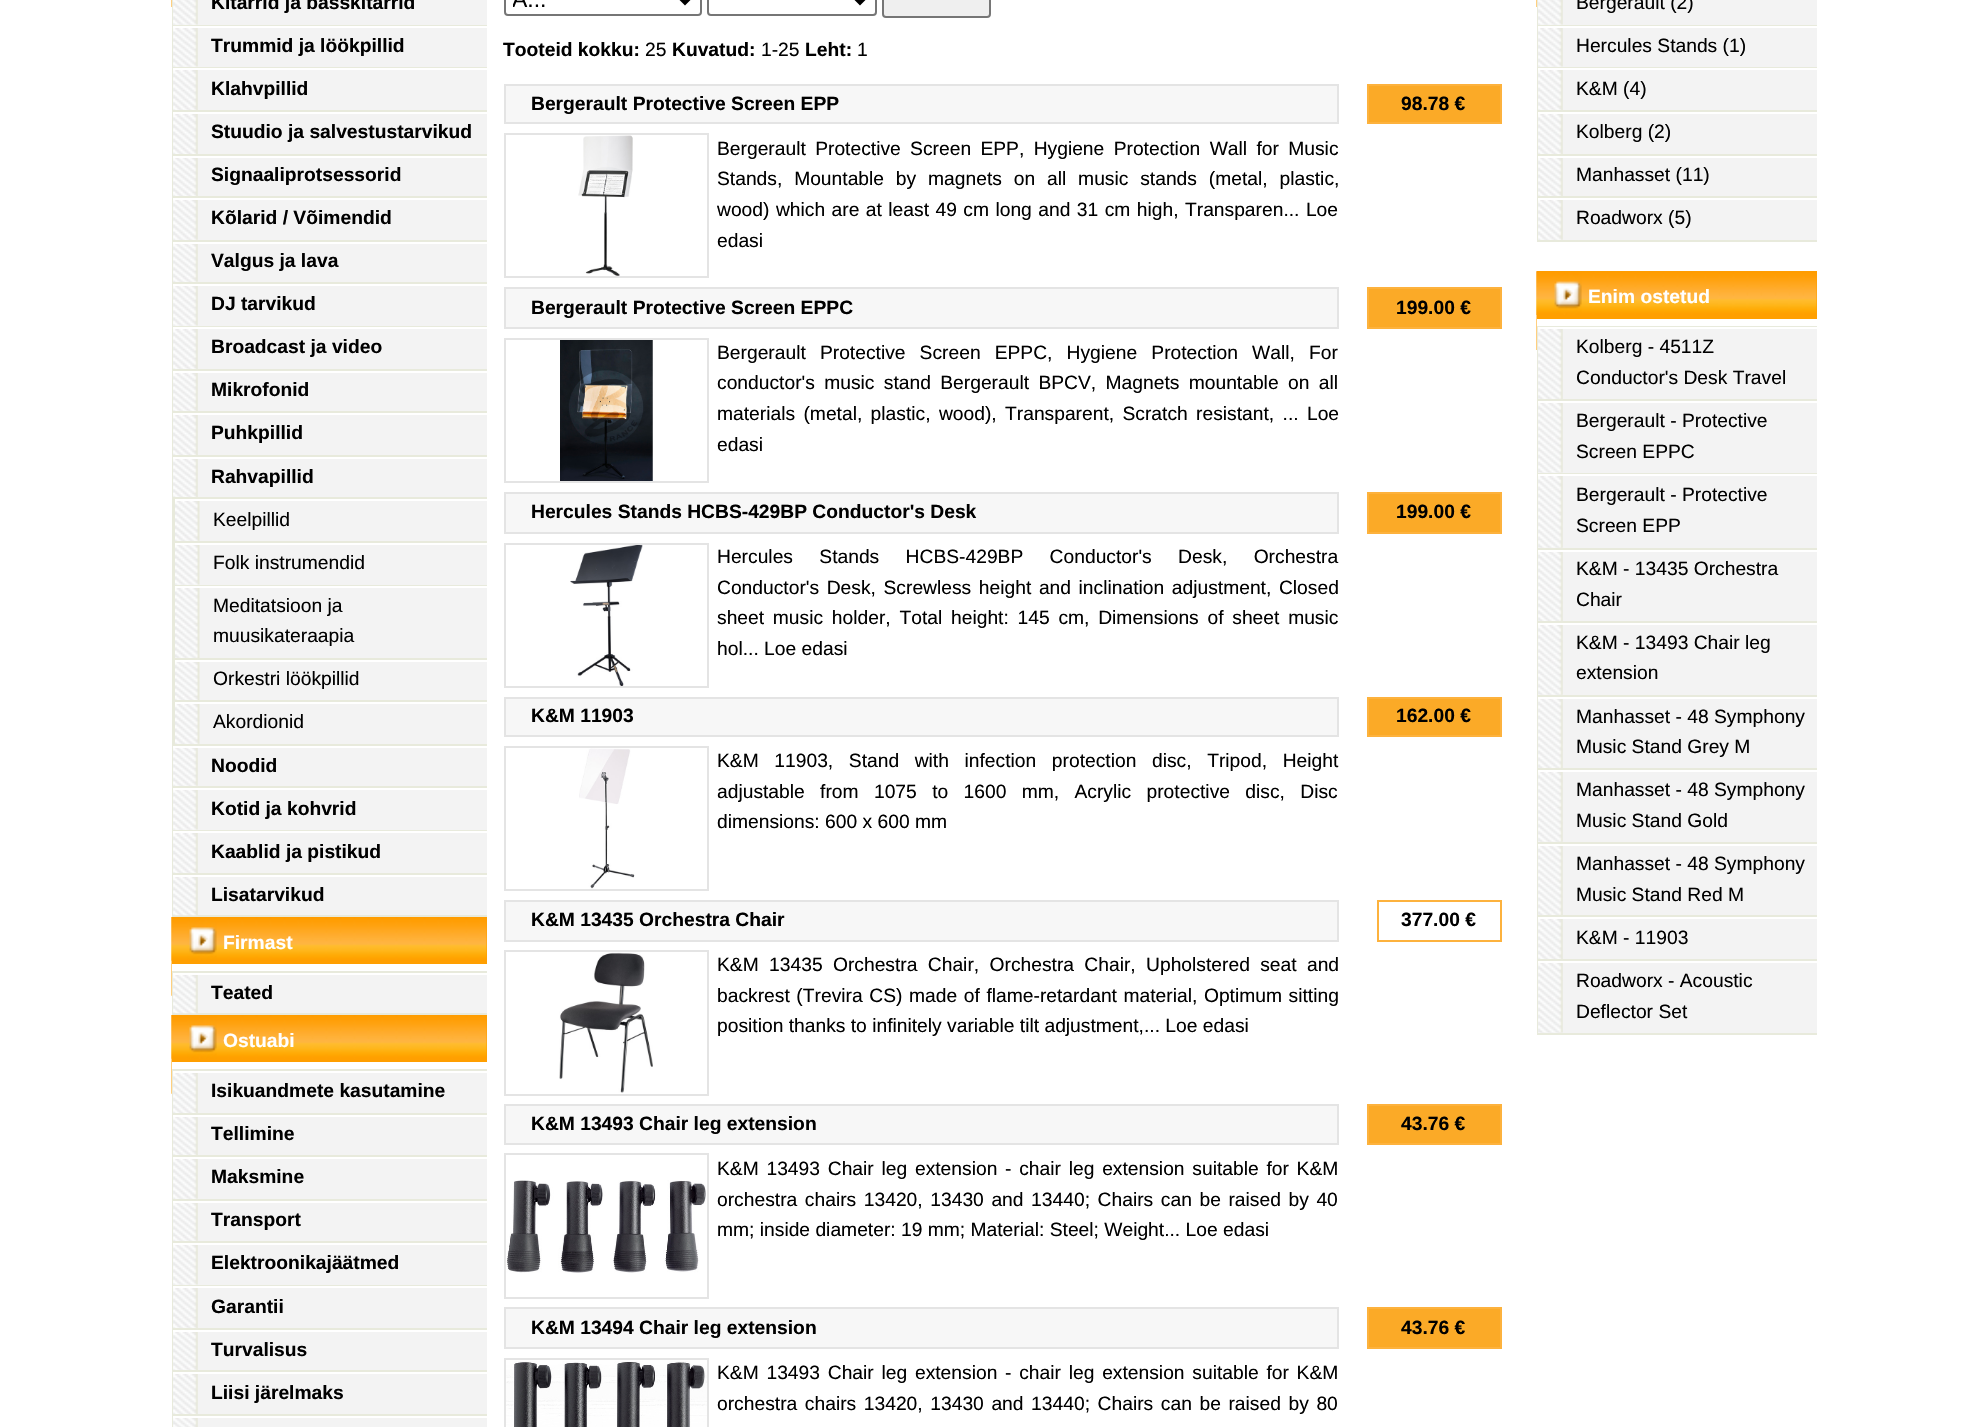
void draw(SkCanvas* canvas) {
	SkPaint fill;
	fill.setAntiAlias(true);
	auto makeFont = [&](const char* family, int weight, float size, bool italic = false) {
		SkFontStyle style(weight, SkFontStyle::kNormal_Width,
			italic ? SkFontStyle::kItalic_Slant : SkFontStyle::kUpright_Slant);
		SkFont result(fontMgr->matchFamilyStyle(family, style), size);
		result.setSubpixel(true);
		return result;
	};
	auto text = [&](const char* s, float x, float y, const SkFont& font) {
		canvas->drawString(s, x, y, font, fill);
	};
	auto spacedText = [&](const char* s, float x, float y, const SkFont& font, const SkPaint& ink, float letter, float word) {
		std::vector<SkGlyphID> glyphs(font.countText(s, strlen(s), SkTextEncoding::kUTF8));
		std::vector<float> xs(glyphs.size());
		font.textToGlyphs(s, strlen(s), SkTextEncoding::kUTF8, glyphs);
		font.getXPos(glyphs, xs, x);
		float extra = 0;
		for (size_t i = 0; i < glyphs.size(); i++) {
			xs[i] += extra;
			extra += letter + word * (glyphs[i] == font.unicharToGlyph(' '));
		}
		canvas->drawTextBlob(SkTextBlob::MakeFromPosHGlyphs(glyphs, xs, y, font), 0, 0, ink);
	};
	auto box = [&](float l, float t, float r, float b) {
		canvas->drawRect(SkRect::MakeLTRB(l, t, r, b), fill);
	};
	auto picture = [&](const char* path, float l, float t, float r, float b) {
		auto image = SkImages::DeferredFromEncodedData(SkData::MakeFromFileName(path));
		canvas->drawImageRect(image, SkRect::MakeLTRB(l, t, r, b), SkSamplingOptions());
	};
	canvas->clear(0xFFFFFFFF);
	fill.setColor(0xFFFFCF80);
	box(171, 0, 172, 7);
	fill.setColor(0xFFE8EADC);
	box(172, 915, 487, 917);
	box(172, 0, 173, 25);
	fill.setColor(0xFFF3F3F3);
	box(173, 0, 487, 25);
	picture("image0.png", 173, 0, 198, 25);
	fill.setColor(0xFFE8EADC);
	box(172, 25, 487, 26);
	box(172, 25, 174, 67);
	fill.setColor(0xFFF3F3F3);
	box(173, 28, 487, 67);
	picture("image1.png", 173, 28, 198, 67);
	fill.setColor(0xFFFFFFFF);
	box(173, 26, 174, 28);
	fill.setColor(0xFFE8EADC);
	box(172, 67, 487, 68);
	box(172, 67, 174, 110);
	fill.setColor(0xFFF3F3F3);
	box(173, 70, 487, 110);
	picture("image2.png", 173, 70, 198, 110);
	fill.setColor(0xFFFFFFFF);
	box(173, 68, 174, 70);
	fill.setColor(0xFFE8EADC);
	box(172, 110, 487, 112);
	box(172, 110, 174, 154);
	fill.setColor(0xFFF3F3F3);
	box(173, 114, 487, 154);
	picture("image3.png", 173, 114, 198, 154);
	fill.setColor(0xFFFFFFFF);
	box(173, 112, 174, 114);
	fill.setColor(0xFFE8EADC);
	box(172, 154, 487, 156);
	box(172, 154, 174, 196);
	fill.setColor(0xFFF3F3F3);
	box(173, 158, 487, 196);
	picture("image4.png", 173, 158, 198, 196);
	fill.setColor(0xFFFFFFFF);
	box(173, 156, 174, 158);
	fill.setColor(0xFFE8EADC);
	box(172, 196, 487, 198);
	box(172, 196, 174, 240);
	fill.setColor(0xFFF3F3F3);
	box(173, 200, 487, 240);
	picture("image5.png", 173, 200, 198, 240);
	fill.setColor(0xFFFFFFFF);
	box(173, 198, 174, 200);
	fill.setColor(0xFFE8EADC);
	box(172, 240, 487, 242);
	box(172, 240, 174, 282);
	fill.setColor(0xFFF3F3F3);
	box(173, 244, 487, 282);
	picture("image6.png", 173, 244, 198, 282);
	fill.setColor(0xFFFFFFFF);
	box(173, 242, 174, 244);
	fill.setColor(0xFFE8EADC);
	box(172, 282, 487, 284);
	box(172, 282, 174, 326);
	fill.setColor(0xFFF3F3F3);
	box(173, 286, 487, 326);
	picture("image7.png", 173, 286, 198, 326);
	fill.setColor(0xFFFFFFFF);
	box(173, 284, 174, 286);
	fill.setColor(0xFFE8EADC);
	box(172, 326, 487, 327);
	box(172, 326, 174, 369);
	fill.setColor(0xFFF3F3F3);
	box(173, 329, 487, 369);
	picture("image2.png", 173, 329, 198, 369);
	fill.setColor(0xFFFFFFFF);
	box(173, 327, 174, 329);
	fill.setColor(0xFFE8EADC);
	box(172, 369, 487, 371);
	box(172, 369, 174, 411);
	fill.setColor(0xFFF3F3F3);
	box(173, 373, 487, 411);
	picture("image8.png", 173, 373, 198, 411);
	fill.setColor(0xFFFFFFFF);
	box(173, 371, 174, 373);
	fill.setColor(0xFFE8EADC);
	box(172, 411, 487, 413);
	box(172, 411, 174, 455);
	fill.setColor(0xFFF3F3F3);
	box(173, 415, 487, 455);
	picture("image3.png", 173, 415, 198, 455);
	fill.setColor(0xFFFFFFFF);
	box(173, 413, 174, 415);
	fill.setColor(0xFFE8EADC);
	box(172, 455, 487, 457);
	box(172, 455, 174, 744);
	fill.setColor(0xFFF3F3F3);
	box(173, 459, 487, 497);
	picture("image4.png", 173, 459, 198, 497);
	fill.setColor(0xFFFFFFFF);
	box(173, 457, 174, 459);
	fill.setColor(0xFFE8EADC);
	box(173, 497, 487, 499);
	box(174, 497, 175, 541);
	fill.setColor(0xFFF3F3F3);
	box(175, 501, 487, 541);
	picture("image9.png", 175, 501, 200, 541);
	fill.setColor(0xFFE8EADC);
	box(173, 541, 487, 543);
	box(174, 541, 175, 585);
	fill.setColor(0xFFF3F3F3);
	box(175, 545, 487, 585);
	picture("image10.png", 175, 545, 200, 585);
	fill.setColor(0xFFE8EADC);
	box(173, 585, 487, 586);
	box(174, 585, 175, 658);
	fill.setColor(0xFFF3F3F3);
	box(199, 588, 487, 658);
	picture("image11.png", 175, 588, 200, 658);
	fill.setColor(0xFFE8EADC);
	box(173, 658, 487, 660);
	box(174, 658, 175, 700);
	fill.setColor(0xFFF3F3F3);
	box(199, 662, 487, 700);
	picture("image12.png", 175, 662, 200, 700);
	fill.setColor(0xFFE8EADC);
	box(173, 700, 487, 702);
	box(174, 700, 175, 744);
	fill.setColor(0xFFF3F3F3);
	box(175, 704, 487, 744);
	picture("image9.png", 175, 704, 200, 744);
	fill.setColor(0xFFE8EADC);
	box(172, 744, 487, 746);
	box(172, 744, 174, 786);
	fill.setColor(0xFFF3F3F3);
	box(173, 748, 487, 786);
	picture("image6.png", 173, 748, 198, 786);
	fill.setColor(0xFFFFFFFF);
	box(173, 746, 174, 748);
	fill.setColor(0xFFE8EADC);
	box(172, 786, 487, 788);
	box(172, 786, 174, 830);
	fill.setColor(0xFFF3F3F3);
	box(173, 790, 487, 830);
	picture("image7.png", 173, 790, 198, 830);
	fill.setColor(0xFFFFFFFF);
	box(173, 788, 174, 790);
	fill.setColor(0xFFE8EADC);
	box(172, 830, 487, 831);
	box(172, 830, 174, 873);
	fill.setColor(0xFFF3F3F3);
	box(173, 833, 487, 873);
	picture("image2.png", 173, 833, 198, 873);
	fill.setColor(0xFFFFFFFF);
	box(173, 831, 174, 833);
	fill.setColor(0xFFE8EADC);
	box(172, 873, 487, 875);
	box(172, 873, 174, 915);
	fill.setColor(0xFFF3F3F3);
	box(173, 877, 487, 915);
	picture("image13.png", 173, 877, 198, 916);
	fill.setColor(0xFFFFFFFF);
	box(173, 875, 174, 877);
	fill.setColor(0xFFFF9F00);
	box(486, 917, 487, 964);
	picture("image14.png", 171, 917, 487, 996);
	fill.setColor(0xFFE8EADC);
	box(172, 1013, 487, 1015);
	picture("image15.png", 171, 917, 217, 961);
	fill.setColor(0xFFFFFFFF);
	box(172, 964, 487, 971);
	fill.setColor(0xFFE8EADC);
	box(172, 971, 487, 973);
	box(172, 971, 174, 1013);
	fill.setColor(0xFFF3F3F3);
	box(173, 975, 487, 1013);
	picture("image13.png", 173, 975, 198, 1014);
	fill.setColor(0xFFFFFFFF);
	box(173, 973, 487, 975);
	fill.setColor(0xFFFF9F00);
	box(486, 1015, 487, 1062);
	picture("image16.png", 171, 1015, 487, 1094);
	picture("image15.png", 171, 1015, 217, 1059);
	fill.setColor(0xFFFFFFFF);
	box(172, 1062, 487, 1069);
	fill.setColor(0xFFE8EADC);
	box(172, 1069, 487, 1071);
	box(172, 1069, 174, 1113);
	fill.setColor(0xFFF3F3F3);
	box(173, 1073, 487, 1113);
	picture("image3.png", 173, 1073, 198, 1113);
	fill.setColor(0xFFFFFFFF);
	box(173, 1071, 487, 1073);
	fill.setColor(0xFFE8EADC);
	box(172, 1113, 487, 1115);
	box(172, 1113, 174, 1155);
	fill.setColor(0xFFF3F3F3);
	box(173, 1117, 487, 1155);
	picture("image4.png", 173, 1117, 198, 1155);
	fill.setColor(0xFFFFFFFF);
	box(173, 1115, 174, 1117);
	fill.setColor(0xFFE8EADC);
	box(172, 1155, 487, 1157);
	box(172, 1155, 174, 1199);
	fill.setColor(0xFFF3F3F3);
	box(173, 1159, 487, 1199);
	picture("image5.png", 173, 1159, 198, 1199);
	fill.setColor(0xFFFFFFFF);
	box(173, 1157, 174, 1159);
	fill.setColor(0xFFE8EADC);
	box(172, 1199, 487, 1201);
	box(172, 1199, 174, 1241);
	fill.setColor(0xFFF3F3F3);
	box(173, 1203, 487, 1241);
	picture("image6.png", 173, 1203, 198, 1241);
	fill.setColor(0xFFFFFFFF);
	box(173, 1201, 174, 1203);
	fill.setColor(0xFFE8EADC);
	box(172, 1241, 487, 1243);
	box(172, 1241, 174, 1285);
	fill.setColor(0xFFF3F3F3);
	box(173, 1245, 487, 1285);
	picture("image7.png", 173, 1245, 198, 1285);
	fill.setColor(0xFFFFFFFF);
	box(173, 1243, 174, 1245);
	fill.setColor(0xFFE8EADC);
	box(172, 1285, 487, 1286);
	box(172, 1285, 174, 1328);
	fill.setColor(0xFFF3F3F3);
	box(173, 1288, 487, 1328);
	picture("image2.png", 173, 1288, 198, 1328);
	fill.setColor(0xFFFFFFFF);
	box(173, 1286, 174, 1288);
	fill.setColor(0xFFE8EADC);
	box(172, 1328, 487, 1330);
	box(172, 1328, 174, 1370);
	fill.setColor(0xFFF3F3F3);
	box(173, 1332, 487, 1370);
	picture("image8.png", 173, 1332, 198, 1370);
	fill.setColor(0xFFFFFFFF);
	box(173, 1330, 174, 1332);
	fill.setColor(0xFFE8EADC);
	box(172, 1370, 487, 1372);
	box(172, 1370, 174, 1414);
	fill.setColor(0xFFF3F3F3);
	box(173, 1374, 487, 1414);
	picture("image3.png", 173, 1374, 198, 1414);
	fill.setColor(0xFFFFFFFF);
	box(173, 1372, 174, 1374);
	fill.setColor(0xFFE8EADC);
	box(172, 1414, 487, 1416);
	box(172, 1414, 174, 1427);
	fill.setColor(0xFFF3F3F3);
	box(173, 1418, 487, 1427);
	picture("image17.png", 173, 1418, 198, 1427);
	fill.setColor(0xFFFFFFFF);
	box(173, 1416, 174, 1418);
	fill.setStyle(SkPaint::kStroke_Style);
	fill.setStrokeWidth(2);
	fill.setColor(0xFF767676);
	canvas->drawRoundRect(SkRect::MakeLTRB(505, -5, 701, 15), 3, 3, fill);
	fill.setStrokeWidth(3.5f);
	fill.setColor(0xFF000000);
	canvas->drawPath(SkPathBuilder().moveTo(678, -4).lineTo(685, 3).lineTo(692, -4).detach(), fill);
	fill.setStrokeWidth(2);
	fill.setColor(0xFF767676);
	canvas->drawRoundRect(SkRect::MakeLTRB(708, -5, 876, 15), 3, 3, fill);
	fill.setStrokeWidth(3.5f);
	fill.setColor(0xFF000000);
	canvas->drawPath(SkPathBuilder().moveTo(853, -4).lineTo(860, 3).lineTo(867, -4).detach(), fill);
	fill.setStyle(SkPaint::kFill_Style);
	fill.setColor(0xFFEFEFEF);
	canvas->drawRoundRect(SkRect::MakeLTRB(883, -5, 990, 17), 3, 3, fill);
	fill.setStyle(SkPaint::kStroke_Style);
	fill.setStrokeWidth(2);
	fill.setColor(0xFF767676);
	canvas->drawRoundRect(SkRect::MakeLTRB(883, -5, 990, 17), 3, 3, fill);
	fill.setStyle(SkPaint::kFill_Style);
	fill.setColor(0xFFF7F7F7);
	canvas->drawRect(SkRect::MakeLTRB(505, 85, 1338, 123), fill);
	fill.setStyle(SkPaint::kStroke_Style);
	fill.setColor(0xFFE4E4E4);
	canvas->drawRect(SkRect::MakeLTRB(505, 85, 1338, 123), fill);
	fill.setStyle(SkPaint::kFill_Style);
	fill.setColor(0xFFFBAA27);
	canvas->drawRect(SkRect::MakeLTRB(1368, 85, 1501, 123), fill);
	fill.setStyle(SkPaint::kStroke_Style);
	fill.setColor(0xFFFDB23D);
	canvas->drawRect(SkRect::MakeLTRB(1368, 85, 1501, 123), fill);
	picture("image18.png", 578, 135, 633, 276);
	fill.setColor(0xFFE4E4E4);
	canvas->drawRect(SkRect::MakeLTRB(505, 134, 708, 277), fill);
	fill.setStyle(SkPaint::kFill_Style);
	fill.setColor(0xFFF7F7F7);
	canvas->drawRect(SkRect::MakeLTRB(505, 288, 1338, 328), fill);
	fill.setStyle(SkPaint::kStroke_Style);
	fill.setColor(0xFFE4E4E4);
	canvas->drawRect(SkRect::MakeLTRB(505, 288, 1338, 328), fill);
	fill.setStyle(SkPaint::kFill_Style);
	fill.setColor(0xFFFBAA27);
	canvas->drawRect(SkRect::MakeLTRB(1368, 288, 1501, 328), fill);
	fill.setStyle(SkPaint::kStroke_Style);
	fill.setColor(0xFFFDB23D);
	canvas->drawRect(SkRect::MakeLTRB(1368, 288, 1501, 328), fill);
	picture("image19.png", 560, 340, 653, 481);
	fill.setColor(0xFFE4E4E4);
	canvas->drawRect(SkRect::MakeLTRB(505, 339, 708, 482), fill);
	fill.setStyle(SkPaint::kFill_Style);
	fill.setColor(0xFFF7F7F7);
	canvas->drawRect(SkRect::MakeLTRB(505, 493, 1338, 533), fill);
	fill.setStyle(SkPaint::kStroke_Style);
	fill.setColor(0xFFE4E4E4);
	canvas->drawRect(SkRect::MakeLTRB(505, 493, 1338, 533), fill);
	fill.setStyle(SkPaint::kFill_Style);
	fill.setColor(0xFFFBAA27);
	canvas->drawRect(SkRect::MakeLTRB(1368, 493, 1501, 533), fill);
	fill.setStyle(SkPaint::kStroke_Style);
	fill.setColor(0xFFFDB23D);
	canvas->drawRect(SkRect::MakeLTRB(1368, 493, 1501, 533), fill);
	picture("image20.png", 570, 545, 643, 686);
	fill.setColor(0xFFE4E4E4);
	canvas->drawRect(SkRect::MakeLTRB(505, 544, 708, 687), fill);
	fill.setStyle(SkPaint::kFill_Style);
	fill.setColor(0xFFF7F7F7);
	canvas->drawRect(SkRect::MakeLTRB(505, 698, 1338, 736), fill);
	fill.setStyle(SkPaint::kStroke_Style);
	fill.setColor(0xFFE4E4E4);
	canvas->drawRect(SkRect::MakeLTRB(505, 698, 1338, 736), fill);
	fill.setStyle(SkPaint::kFill_Style);
	fill.setColor(0xFFFBAA27);
	canvas->drawRect(SkRect::MakeLTRB(1368, 698, 1501, 736), fill);
	fill.setStyle(SkPaint::kStroke_Style);
	fill.setColor(0xFFFDB23D);
	canvas->drawRect(SkRect::MakeLTRB(1368, 698, 1501, 736), fill);
	picture("image21.png", 579, 748, 635, 889);
	fill.setColor(0xFFE4E4E4);
	canvas->drawRect(SkRect::MakeLTRB(505, 747, 708, 890), fill);
	fill.setStyle(SkPaint::kFill_Style);
	fill.setColor(0xFFF7F7F7);
	canvas->drawRect(SkRect::MakeLTRB(505, 901, 1338, 941), fill);
	fill.setStyle(SkPaint::kStroke_Style);
	fill.setColor(0xFFE4E4E4);
	canvas->drawRect(SkRect::MakeLTRB(505, 901, 1338, 941), fill);
	fill.setColor(0xFFFDB23D);
	canvas->drawRect(SkRect::MakeLTRB(1378, 901, 1501, 941), fill);
	picture("image22.png", 559, 952, 653, 1093);
	fill.setColor(0xFFE4E4E4);
	canvas->drawRect(SkRect::MakeLTRB(505, 951, 708, 1095), fill);
	fill.setStyle(SkPaint::kFill_Style);
	fill.setColor(0xFFF7F7F7);
	canvas->drawRect(SkRect::MakeLTRB(505, 1105, 1338, 1144), fill);
	fill.setStyle(SkPaint::kStroke_Style);
	fill.setColor(0xFFE4E4E4);
	canvas->drawRect(SkRect::MakeLTRB(505, 1105, 1338, 1144), fill);
	fill.setStyle(SkPaint::kFill_Style);
	fill.setColor(0xFFFBAA27);
	canvas->drawRect(SkRect::MakeLTRB(1368, 1105, 1501, 1144), fill);
	fill.setStyle(SkPaint::kStroke_Style);
	fill.setColor(0xFFFDB23D);
	canvas->drawRect(SkRect::MakeLTRB(1368, 1105, 1501, 1144), fill);
	picture("image23.png", 506, 1180, 706, 1273);
	fill.setColor(0xFFE4E4E4);
	canvas->drawRect(SkRect::MakeLTRB(505, 1154, 708, 1298), fill);
	fill.setStyle(SkPaint::kFill_Style);
	fill.setColor(0xFFF7F7F7);
	canvas->drawRect(SkRect::MakeLTRB(505, 1308, 1338, 1348), fill);
	fill.setStyle(SkPaint::kStroke_Style);
	fill.setColor(0xFFE4E4E4);
	canvas->drawRect(SkRect::MakeLTRB(505, 1308, 1338, 1348), fill);
	fill.setStyle(SkPaint::kFill_Style);
	fill.setColor(0xFFFBAA27);
	canvas->drawRect(SkRect::MakeLTRB(1368, 1308, 1501, 1348), fill);
	fill.setStyle(SkPaint::kStroke_Style);
	fill.setColor(0xFFFDB23D);
	canvas->drawRect(SkRect::MakeLTRB(1368, 1308, 1501, 1348), fill);
	picture("image24.png", 506, 1361, 707, 1427);
	fill.setColor(0xFFE4E4E4);
	canvas->drawRect(SkRect::MakeLTRB(505, 1359, 708, 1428), fill);
	fill.setStyle(SkPaint::kFill_Style);
	fill.setColor(0xFFFFCF80);
	box(1536, 0, 1537, 7);
	fill.setColor(0xFFE8EADC);
	box(1537, 240, 1817, 242);
	box(1537, 0, 1538, 25);
	fill.setColor(0xFFF3F3F3);
	box(1538, 0, 1817, 25);
	picture("image25.png", 1538, 0, 1563, 25);
	fill.setColor(0xFFE8EADC);
	box(1537, 25, 1817, 26);
	box(1537, 25, 1539, 67);
	fill.setColor(0xFFF3F3F3);
	box(1538, 28, 1817, 67);
	picture("image26.png", 1538, 28, 1563, 67);
	fill.setColor(0xFFFFFFFF);
	box(1538, 26, 1539, 28);
	fill.setColor(0xFFE8EADC);
	box(1537, 67, 1817, 68);
	box(1537, 67, 1539, 110);
	fill.setColor(0xFFF3F3F3);
	box(1538, 70, 1817, 110);
	picture("image27.png", 1538, 70, 1563, 110);
	fill.setColor(0xFFFFFFFF);
	box(1538, 68, 1539, 70);
	fill.setColor(0xFFE8EADC);
	box(1537, 110, 1817, 112);
	box(1537, 110, 1539, 154);
	fill.setColor(0xFFF3F3F3);
	box(1538, 114, 1817, 154);
	picture("image28.png", 1538, 114, 1563, 154);
	fill.setColor(0xFFFFFFFF);
	box(1538, 112, 1539, 114);
	fill.setColor(0xFFE8EADC);
	box(1537, 154, 1817, 156);
	box(1537, 154, 1539, 196);
	fill.setColor(0xFFF3F3F3);
	box(1538, 158, 1817, 196);
	picture("image29.png", 1538, 158, 1563, 196);
	fill.setColor(0xFFFFFFFF);
	box(1538, 156, 1539, 158);
	fill.setColor(0xFFE8EADC);
	box(1537, 196, 1817, 198);
	box(1537, 196, 1539, 240);
	fill.setColor(0xFFF3F3F3);
	box(1538, 200, 1817, 240);
	picture("image30.png", 1538, 200, 1563, 240);
	fill.setColor(0xFFFFFFFF);
	box(1538, 198, 1539, 200);
	fill.setColor(0xFFFF9F00);
	box(1537, 271, 1817, 319);
	picture("image31.png", 1536, 271, 1817, 350);
	fill.setColor(0xFFE8EADC);
	box(1537, 1033, 1817, 1035);
	picture("image32.png", 1536, 271, 1582, 315);
	fill.setColor(0xFFFFFFFF);
	box(1537, 319, 1817, 326);
	fill.setColor(0xFFE8EADC);
	box(1537, 326, 1817, 327);
	box(1537, 326, 1539, 399);
	fill.setColor(0xFFF3F3F3);
	box(1538, 329, 1817, 399);
	picture("image33.png", 1538, 329, 1563, 399);
	fill.setColor(0xFFFFFFFF);
	box(1538, 327, 1817, 329);
	fill.setColor(0xFFE8EADC);
	box(1537, 399, 1817, 401);
	box(1537, 399, 1539, 473);
	fill.setColor(0xFFF3F3F3);
	box(1538, 403, 1817, 473);
	picture("image34.png", 1538, 403, 1563, 473);
	fill.setColor(0xFFFFFFFF);
	box(1538, 401, 1539, 403);
	fill.setColor(0xFFE8EADC);
	box(1537, 473, 1817, 474);
	box(1537, 473, 1539, 548);
	fill.setColor(0xFFF3F3F3);
	box(1538, 476, 1817, 548);
	picture("image35.png", 1538, 476, 1563, 548);
	fill.setColor(0xFFFFFFFF);
	box(1538, 474, 1539, 476);
	fill.setColor(0xFFE8EADC);
	box(1537, 548, 1817, 550);
	box(1537, 548, 1539, 621);
	fill.setColor(0xFFF3F3F3);
	box(1538, 552, 1817, 621);
	picture("image36.png", 1538, 552, 1563, 621);
	fill.setColor(0xFFFFFFFF);
	box(1538, 550, 1539, 552);
	fill.setColor(0xFFE8EADC);
	box(1537, 621, 1817, 623);
	box(1537, 621, 1539, 695);
	fill.setColor(0xFFF3F3F3);
	box(1538, 625, 1817, 695);
	picture("image37.png", 1538, 625, 1563, 695);
	fill.setColor(0xFFFFFFFF);
	box(1538, 623, 1539, 625);
	fill.setColor(0xFFE8EADC);
	box(1537, 695, 1817, 697);
	box(1537, 695, 1539, 768);
	fill.setColor(0xFFF3F3F3);
	box(1538, 699, 1817, 768);
	picture("image36.png", 1538, 699, 1563, 768);
	fill.setColor(0xFFFFFFFF);
	box(1538, 697, 1539, 699);
	fill.setColor(0xFFE8EADC);
	box(1537, 768, 1817, 770);
	box(1537, 768, 1539, 842);
	fill.setColor(0xFFF3F3F3);
	box(1538, 772, 1817, 842);
	picture("image37.png", 1538, 772, 1563, 842);
	fill.setColor(0xFFFFFFFF);
	box(1538, 770, 1539, 772);
	fill.setColor(0xFFE8EADC);
	box(1537, 842, 1817, 844);
	box(1537, 842, 1539, 915);
	fill.setColor(0xFFF3F3F3);
	box(1538, 846, 1817, 915);
	picture("image36.png", 1538, 846, 1563, 915);
	fill.setColor(0xFFFFFFFF);
	box(1538, 844, 1539, 846);
	fill.setColor(0xFFE8EADC);
	box(1537, 915, 1817, 917);
	box(1537, 915, 1539, 959);
	fill.setColor(0xFFF3F3F3);
	box(1538, 919, 1817, 959);
	picture("image28.png", 1538, 919, 1563, 959);
	fill.setColor(0xFFFFFFFF);
	box(1538, 917, 1539, 919);
	fill.setColor(0xFFE8EADC);
	box(1537, 959, 1817, 961);
	box(1537, 959, 1539, 1033);
	fill.setColor(0xFFF3F3F3);
	box(1538, 963, 1817, 1033);
	picture("image34.png", 1538, 963, 1563, 1033);
	fill.setColor(0xFFFFFFFF);
	box(1538, 961, 1539, 963);
	auto font1 = makeFont("Liberation Sans", 700, 19.25f);
	fill.setColor(0xFF000000);
	text("Kitarrid ja basskitarrid", 211, 9, font1);
	text("Trummid ja löökpillid", 211, 52, font1);
	text("Klahvpillid", 211, 95, font1);
	text("Stuudio ja salvestustarvikud", 211, 138, font1);
	text("Signaaliprotsessorid", 211, 181, font1);
	text("Kõlarid / Võimendid", 211, 224, font1);
	text("Valgus ja lava", 211, 267, font1);
	text("DJ tarvikud", 211, 310, font1);
	text("Broadcast ja video", 211, 353, font1);
	text("Mikrofonid", 211, 396, font1);
	text("Puhkpillid", 211, 439, font1);
	text("Rahvapillid", 211, 483, font1);
	auto font2 = makeFont("Liberation Sans", 400, 19.25f);
	text("Keelpillid", 213, 526, font2);
	text("Folk instrumendid", 213, 569, font2);
	text("Meditatsioon ja", 213, 612, font2);
	text("muusikateraapia", 213, 642, font2);
	text("Orkestri löökpillid", 213, 685, font2);
	text("Akordionid", 213, 728, font2);
	text("Noodid", 211, 772, font1);
	text("Kotid ja kohvrid", 211, 815, font1);
	text("Kaablid ja pistikud", 211, 858, font1);
	text("Lisatarvikud", 211, 901, font1);
	fill.setColor(0xFFFFFFFF);
	text("Firmast", 223, 949, font1);
	fill.setColor(0xFF000000);
	text("Teated", 211, 999, font1);
	fill.setColor(0xFFFFFFFF);
	text("Ostuabi", 223, 1047, font1);
	fill.setColor(0xFF000000);
	text("Isikuandmete kasutamine", 211, 1097, font1);
	text("Tellimine", 211, 1140, font1);
	text("Maksmine", 211, 1183, font1);
	text("Transport", 211, 1226, font1);
	text("Elektroonikajäätmed", 211, 1269, font1);
	text("Garantii", 211, 1313, font1);
	text("Turvalisus", 211, 1356, font1);
	text("Liisi järelmaks", 211, 1399, font1);
	canvas->save();
	canvas->clipRect(SkRect::MakeLTRB(513, 0, 672, 14));
	auto font3 = makeFont("Liberation Sans", 400, 23);
	text("A...", 512, 7, font3);
	canvas->restore();
	text("Tooteid kokku:", 503, 56, font1);
	text("25", 645, 56, font2);
	text("Kuvatud:", 672, 56, font1);
	text("1-25", 761, 56, font2);
	text("Leht:", 805, 56, font1);
	text("1", 857, 56, font2);
	text("Bergerault Protective Screen EPP", 531, 110, font1);
	text("98.78 €", 1401, 110, font1);
	spacedText("Bergerault Protective Screen EPP, Hygiene Protection Wall for Music", 717, 155, font2, fill, 0, 4);
	spacedText("Stands, Mountable by magnets on all music stands (metal, plastic,", 717, 185, font2, fill, 0, 6.5f);
	spacedText("wood) which are at least 49 cm long and 31 cm high, Transparen... Loe", 717, 216, font2, fill, 0, 1.1f);
	text("edasi", 717, 247, font2);
	text("Bergerault Protective Screen EPPC", 531, 314, font1);
	text("199.00 €", 1396, 314, font1);
	spacedText("Bergerault Protective Screen EPPC, Hygiene Protection Wall, For", 717, 359, font2, fill, 0, 8.75f);
	spacedText("conductor's music stand Bergerault BPCV, Magnets mountable on all", 717, 389, font2, fill, 0, 4);
	spacedText("materials (metal, plastic, wood), Transparent, Scratch resistant, ... Loe", 717, 420, font2, fill, 0, 3);
	text("edasi", 717, 451, font2);
	text("Hercules Stands HCBS-429BP Conductor's Desk", 531, 518, font1);
	text("199.00 €", 1396, 518, font1);
	spacedText("Hercules Stands HCBS-429BP Conductor's Desk, Orchestra", 717, 563, font2, fill, 0, 21);
	spacedText("Conductor's Desk, Screwless height and inclination adjustment, Closed", 717, 594, font2, fill, 0, 2.25f);
	spacedText("sheet music holder, Total height: 145 cm, Dimensions of sheet music", 717, 624, font2, fill, 0, 3.4f);
	text("hol... Loe edasi", 717, 655, font2);
	text("K&M 11903", 531, 722, font1);
	text("162.00 €", 1396, 722, font1);
	spacedText("K&M 11903, Stand with infection protection disc, Tripod, Height", 717, 767, font2, fill, 0, 10.25f);
	spacedText("adjustable from 1075 to 1600 mm, Acrylic protective disc, Disc", 717, 798, font2, fill, 0, 10);
	text("dimensions: 600 x 600 mm", 717, 828, font2);
	text("K&M 13435 Orchestra Chair", 531, 926, font1);
	text("377.00 €", 1401, 926, font1);
	spacedText("K&M 13435 Orchestra Chair, Orchestra Chair, Upholstered seat and", 717, 971, font2, fill, 0, 5);
	spacedText("backrest (Trevira CS) made of flame-retardant material, Optimum sitting", 717, 1002, font2, fill, 0, 1.25f);
	text("position thanks to infinitely variable tilt adjustment,... Loe edasi", 717, 1032, font2);
	text("K&M 13493 Chair leg extension", 531, 1130, font1);
	text("43.76 €", 1401, 1130, font1);
	spacedText("K&M 13493 Chair leg extension - chair leg extension suitable for K&M", 717, 1175, font2, fill, 0, 2.4f);
	spacedText("orchestra chairs 13420, 13430 and 13440; Chairs can be raised by 40", 717, 1206, font2, fill, 0, 2.25f);
	text("mm; inside diameter: 19 mm; Material: Steel; Weight... Loe edasi", 717, 1236, font2);
	text("K&M 13494 Chair leg extension", 531, 1334, font1);
	text("43.76 €", 1401, 1334, font1);
	spacedText("K&M 13493 Chair leg extension - chair leg extension suitable for K&M", 717, 1379, font2, fill, 0, 2.4f);
	spacedText("orchestra chairs 13420, 13430 and 13440; Chairs can be raised by 80", 717, 1410, font2, fill, 0, 2.25f);
	text("Bergerault (2)", 1576, 9, font2);
	text("Hercules Stands (1)", 1576, 52, font2);
	text("K&M (4)", 1576, 95, font2);
	text("Kolberg (2)", 1576, 138, font2);
	text("Manhasset (11)", 1576, 181, font2);
	text("Roadworx (5)", 1576, 224, font2);
	fill.setColor(0xFFFFFFFF);
	text("Enim ostetud", 1588, 303, font1);
	fill.setColor(0xFF000000);
	text("Kolberg - 4511Z", 1576, 353, font2);
	text("Conductor's Desk Travel", 1576, 384, font2);
	text("Bergerault - Protective", 1576, 427, font2);
	text("Screen EPPC", 1576, 458, font2);
	text("Bergerault - Protective", 1576, 501, font2);
	text("Screen EPP", 1576, 532, font2);
	text("K&M - 13435 Orchestra", 1576, 575, font2);
	text("Chair", 1576, 606, font2);
	text("K&M - 13493 Chair leg", 1576, 649, font2);
	text("extension", 1576, 679, font2);
	text("Manhasset - 48 Symphony", 1576, 723, font2);
	text("Music Stand Grey M", 1576, 753, font2);
	text("Manhasset - 48 Symphony", 1576, 796, font2);
	text("Music Stand Gold", 1576, 827, font2);
	text("Manhasset - 48 Symphony", 1576, 870, font2);
	text("Music Stand Red M", 1576, 901, font2);
	text("K&M - 11903", 1576, 944, font2);
	text("Roadworx - Acoustic", 1576, 987, font2);
	text("Deflector Set", 1576, 1018, font2);
}
